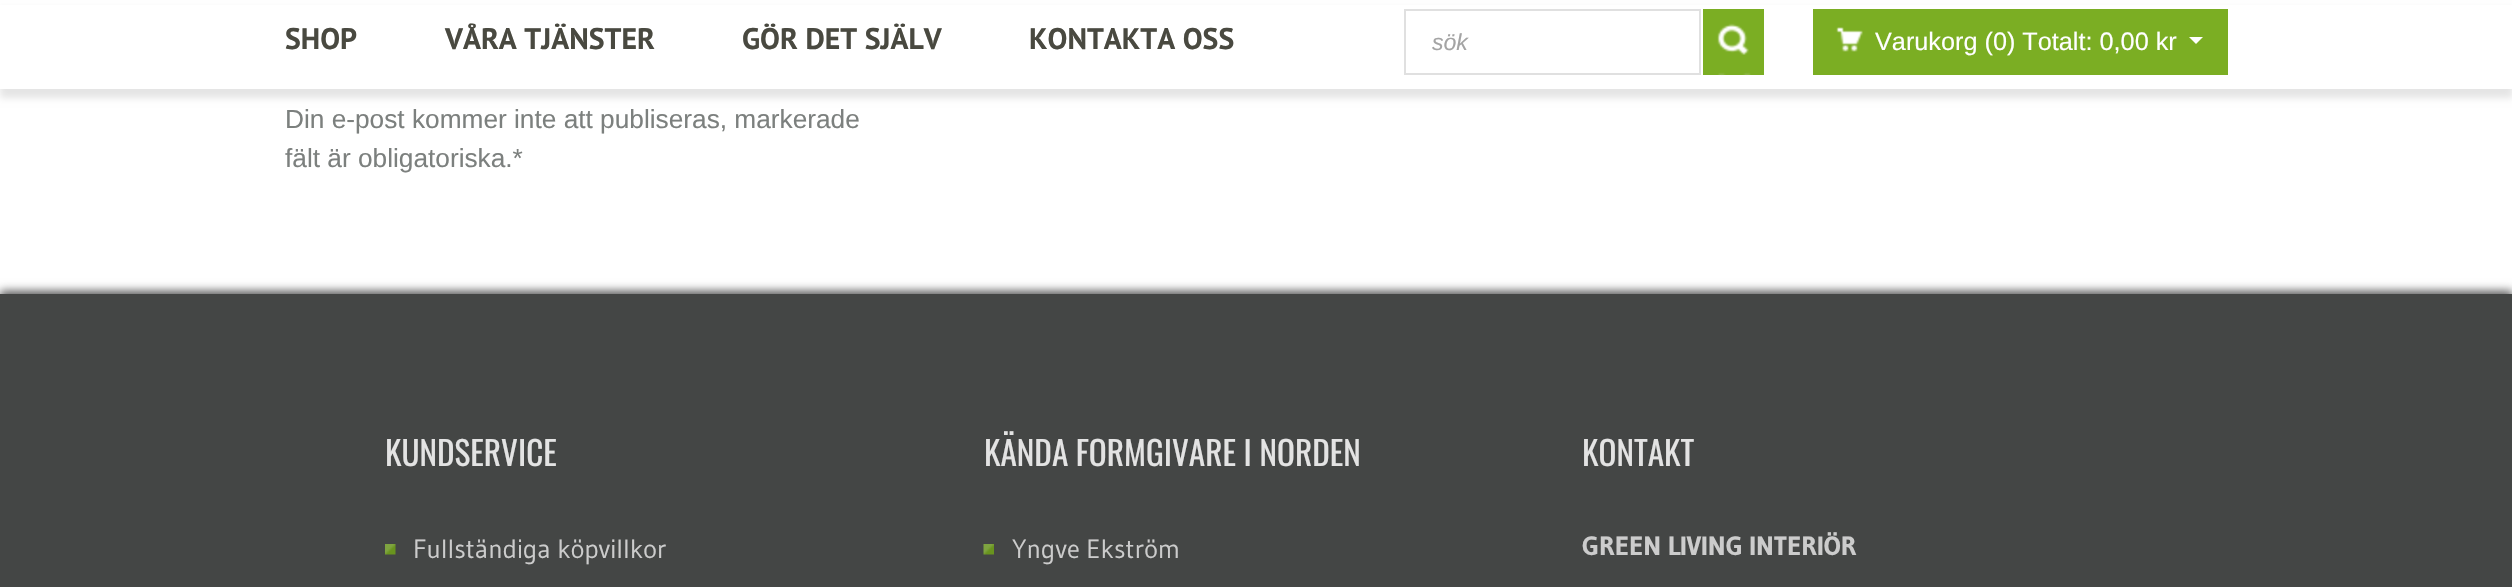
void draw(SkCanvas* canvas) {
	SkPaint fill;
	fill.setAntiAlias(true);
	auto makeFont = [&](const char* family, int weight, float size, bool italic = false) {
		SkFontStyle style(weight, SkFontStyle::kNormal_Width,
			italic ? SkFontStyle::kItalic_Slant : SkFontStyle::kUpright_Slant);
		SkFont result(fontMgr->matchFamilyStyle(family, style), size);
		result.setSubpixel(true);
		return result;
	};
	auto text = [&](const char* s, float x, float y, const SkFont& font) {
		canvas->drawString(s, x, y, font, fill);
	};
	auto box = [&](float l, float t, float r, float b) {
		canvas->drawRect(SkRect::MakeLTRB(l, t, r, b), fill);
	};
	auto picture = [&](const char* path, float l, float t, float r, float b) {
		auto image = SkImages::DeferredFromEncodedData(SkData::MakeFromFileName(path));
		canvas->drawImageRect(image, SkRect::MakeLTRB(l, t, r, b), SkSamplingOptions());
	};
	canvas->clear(0xFFFFFFFF);
	fill.setColor(0x1A000000);
	fill.setMaskFilter(SkMaskFilter::MakeBlur(kNormal_SkBlurStyle, 3.5f));
	canvas->drawRect(SkRect::MakeLTRB(0, 9, 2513, 98), fill);
	fill.setMaskFilter(nullptr);
	fill.setColor(0xFFFFFFFF);
	box(0, 5, 2512, 89);
	fill.setStyle(SkPaint::kStroke_Style);
	fill.setStrokeWidth(2);
	fill.setColor(0xFFE0E0E0);
	canvas->drawRect(SkRect::MakeLTRB(1405, 10, 1700, 74), fill);
	fill.setStyle(SkPaint::kFill_Style);
	fill.setColor(0xFF7BAE23);
	box(1703, 9, 1764, 75);
	picture("image0.png", 1717, 23, 1751, 76);
	box(1813, 9, 2228, 75);
	picture("image1.png", 1836, 27, 1863, 52);
	fill.setColor(0xFFFFFFFF);
	canvas->drawPath(SkPathBuilder().moveTo(2189, 37).lineTo(2203, 37).lineTo(2196, 44).close().detach(), fill);
	fill.setColor(0xFF555555);
	fill.setMaskFilter(SkMaskFilter::MakeBlur(kNormal_SkBlurStyle, 4.5f));
	canvas->drawRect(SkRect::MakeLTRB(0, 291, 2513, 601), fill);
	fill.setMaskFilter(nullptr);
	fill.setColor(0xFF444645);
	box(0, 294, 2512, 587);
	picture("image2.png", 385, 544, 396, 555);
	picture("image3.png", 983, 544, 994, 555);
	auto font1 = makeFont("PT Sans", 700, 29.75f);
	fill.setColor(0xFF494940);
	text("SHOP", 285, 49, font1);
	text("VÅRA TJÄNSTER", 445, 49, font1);
	text("GÖR DET SJÄLV", 742, 49, font1);
	text("KONTAKTA OSS", 1029, 49, font1);
	auto font2 = makeFont("Liberation Sans", 400, 23, true);
	fill.setColor(0xFFA4A4A4);
	text("sök", 1432, 50, font2);
	auto font3 = makeFont("Liberation Sans", 400, 25.25f);
	fill.setColor(0xFFFFFFFF);
	text("Varukorg (0) Totalt: 0,00 kr", 1875, 50, font3);
	auto font4 = makeFont("Liberation Sans", 400, 26.25f);
	fill.setColor(0xFF7C807E);
	text("Din e-post kommer inte att publiseras, markerade", 285, 128, font4);
	text("fält är obligatoriska.*", 285, 167, font4);
	auto font5 = makeFont("Oswald", 400, 33.25f);
	fill.setColor(0xFFE3E3E3);
	text("KUNDSERVICE", 385, 466, font5);
	auto font6 = makeFont("Gudea", 400, 26.25f);
	fill.setColor(0xFFCCCCCC);
	text("Fullständiga köpvillkor", 413, 558, font6);
	fill.setColor(0xFFE3E3E3);
	text("KÄNDA FORMGIVARE I NORDEN", 984, 466, font5);
	fill.setColor(0xFFCCCCCC);
	text("Yngve Ekström", 1012, 558, font6);
	fill.setColor(0xFFE3E3E3);
	text("KONTAKT", 1582, 466, font5);
	auto font7 = makeFont("Gudea", 700, 26.25f);
	fill.setColor(0xFFCCCCCC);
	text("GREEN LIVING INTERIÖR", 1582, 555, font7);
}
